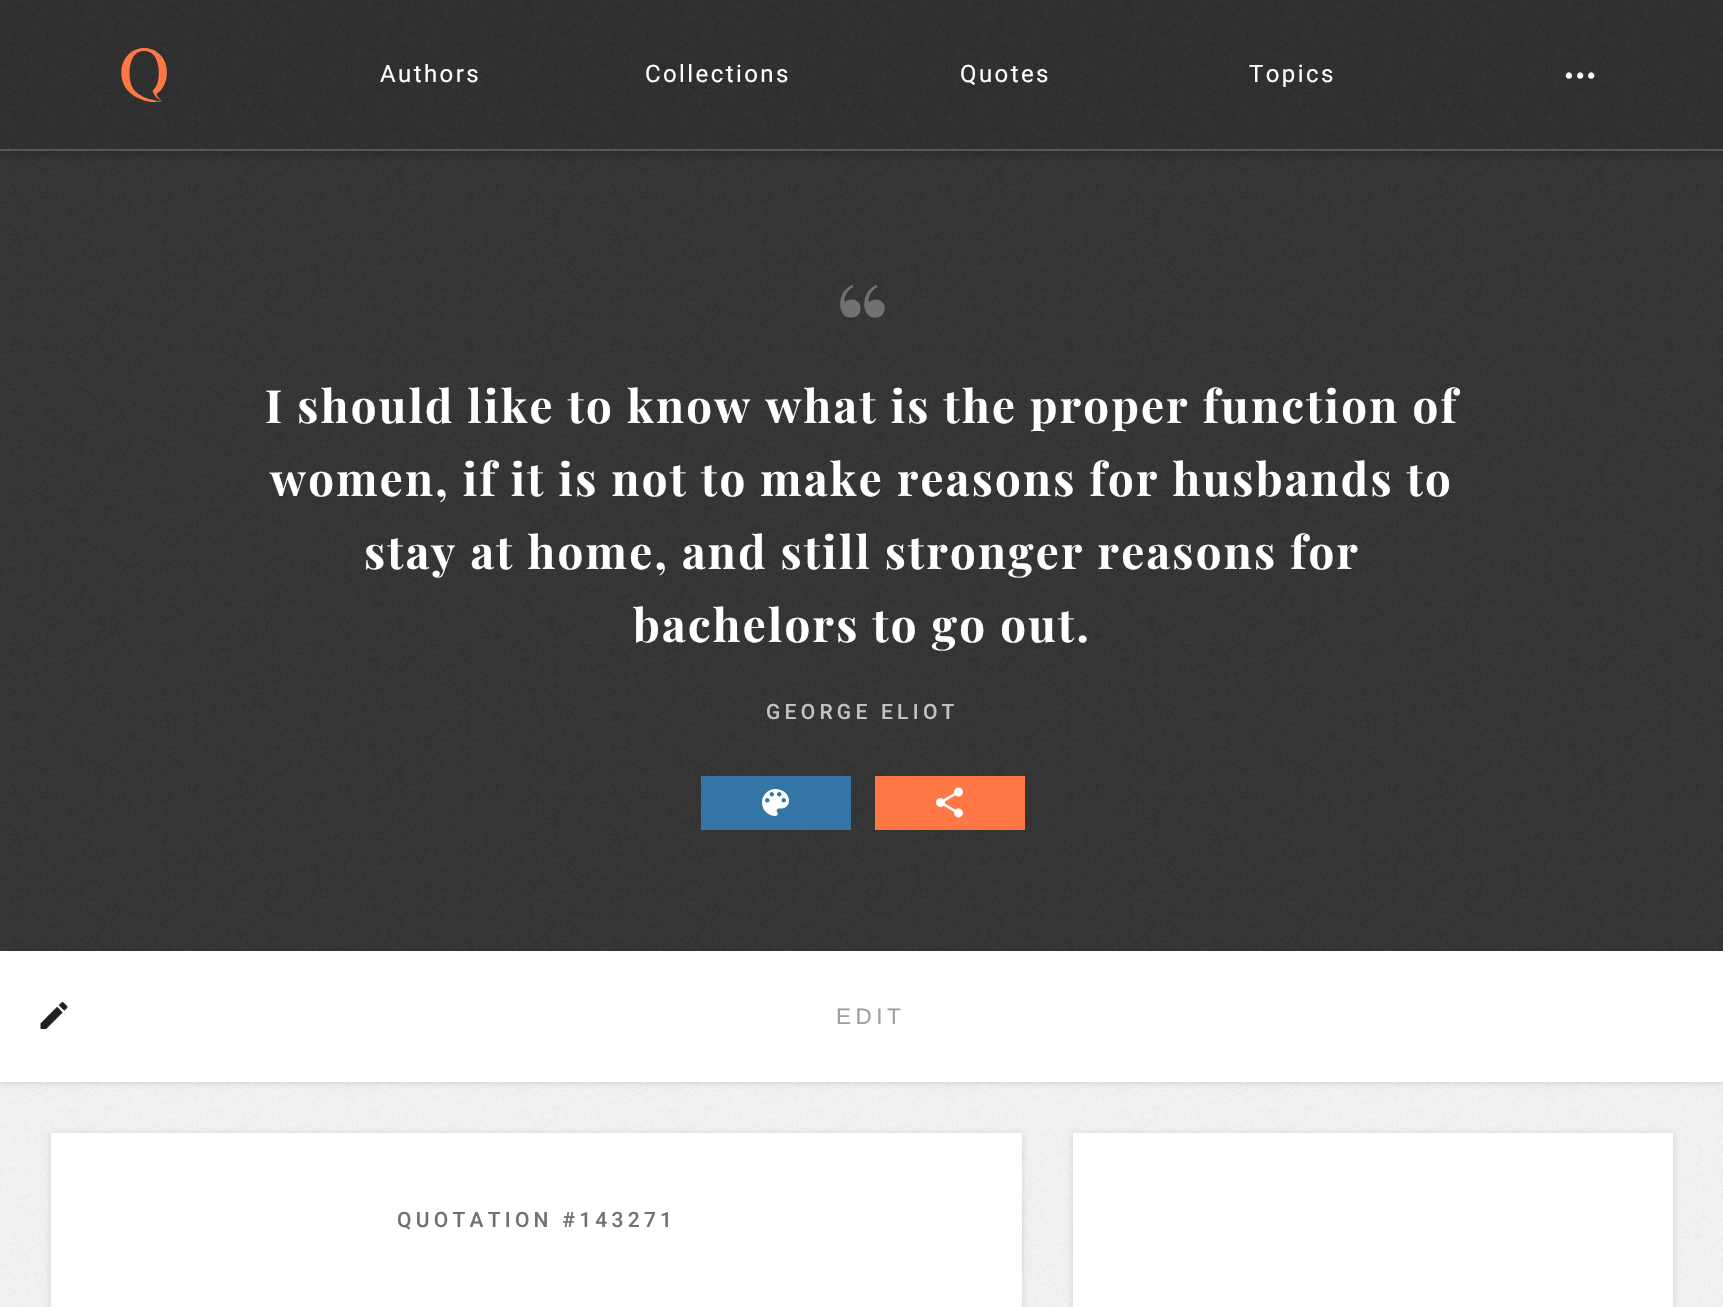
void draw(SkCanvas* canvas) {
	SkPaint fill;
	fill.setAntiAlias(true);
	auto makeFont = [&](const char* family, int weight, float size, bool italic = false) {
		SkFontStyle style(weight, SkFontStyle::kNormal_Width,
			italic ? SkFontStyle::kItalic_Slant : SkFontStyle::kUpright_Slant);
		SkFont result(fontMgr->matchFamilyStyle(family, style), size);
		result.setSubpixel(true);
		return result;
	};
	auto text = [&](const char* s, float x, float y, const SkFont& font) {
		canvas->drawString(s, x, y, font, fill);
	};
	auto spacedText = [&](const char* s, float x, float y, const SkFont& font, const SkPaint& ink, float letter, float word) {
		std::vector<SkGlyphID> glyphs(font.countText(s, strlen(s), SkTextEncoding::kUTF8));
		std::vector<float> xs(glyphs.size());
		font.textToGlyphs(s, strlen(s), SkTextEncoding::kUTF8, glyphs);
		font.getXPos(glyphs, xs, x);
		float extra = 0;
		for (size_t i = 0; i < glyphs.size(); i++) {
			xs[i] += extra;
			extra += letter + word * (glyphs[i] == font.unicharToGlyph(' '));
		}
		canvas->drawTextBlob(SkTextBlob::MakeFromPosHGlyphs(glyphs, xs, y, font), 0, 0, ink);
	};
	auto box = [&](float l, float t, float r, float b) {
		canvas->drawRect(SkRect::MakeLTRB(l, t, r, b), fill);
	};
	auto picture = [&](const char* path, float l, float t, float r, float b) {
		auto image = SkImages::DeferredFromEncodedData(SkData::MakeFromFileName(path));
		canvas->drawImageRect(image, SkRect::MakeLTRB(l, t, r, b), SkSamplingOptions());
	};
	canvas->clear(0xFFF5F5F5);
	picture("image0.png", 0, 1082, 1723, 1307);
	fill.setColor(0xFF333333);
	box(0, 0, 1723, 951);
	picture("image1.png", 0, 0, 1723, 951);
	canvas->save();
	canvas->clipRect(SkRect::MakeLTRB(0, 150, 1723, 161));
	fill.setColor(0x4D000000);
	fill.setMaskFilter(SkMaskFilter::MakeBlur(kNormal_SkBlurStyle, 6));
	canvas->drawRect(SkRect::MakeLTRB(0, 2, 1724, 152), fill);
	fill.setMaskFilter(nullptr);
	canvas->restore();
	fill.setColor(0x1A000000);
	box(0, 0, 1723, 150);
	fill.setColor(0x33FFFFFF);
	box(0, 149, 1723, 151);
	picture("image2.png", 121, 48, 167, 102);
	fill.setColor(0xFF3375A4);
	box(701, 776, 851, 830);
	picture("image3.png", 762, 789, 789, 816);
	fill.setColor(0xFFFF7744);
	box(875, 776, 1025, 830);
	picture("image4.png", 936, 787, 963, 818);
	fill.setColor(0x24000000);
	fill.setMaskFilter(SkMaskFilter::MakeBlur(kNormal_SkBlurStyle, 3));
	canvas->drawRect(SkRect::MakeLTRB(0, 953, 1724, 1083), fill);
	fill.setMaskFilter(nullptr);
	fill.setColor(0xFFFFFFFF);
	box(0, 951, 1723, 1082);
	picture("image5.png", 40, 1002, 68, 1029);
	fill.setColor(0x24000000);
	fill.setMaskFilter(SkMaskFilter::MakeBlur(kNormal_SkBlurStyle, 3));
	canvas->drawRect(SkRect::MakeLTRB(51, 1134, 1022, 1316), fill);
	fill.setMaskFilter(nullptr);
	fill.setColor(0xFFFFFFFF);
	box(51, 1133, 1022, 1307);
	fill.setColor(0x24000000);
	fill.setMaskFilter(SkMaskFilter::MakeBlur(kNormal_SkBlurStyle, 3));
	canvas->drawRect(SkRect::MakeLTRB(1073, 1134, 1673, 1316), fill);
	fill.setMaskFilter(nullptr);
	fill.setColor(0xFFFFFFFF);
	box(1073, 1133, 1673, 1307);
	auto font1 = makeFont("Roboto", 400, 24);
	spacedText("Authors", 380, 82, font1, fill, 2.4f, 0);
	spacedText("Collections", 645, 82, font1, fill, 2.4f, 0);
	spacedText("Quotes", 960, 82, font1, fill, 2.4f, 0);
	spacedText("Topics", 1249, 82, font1, fill, 2.4f, 0);
	auto font2 = makeFont("Liberation Sans", 400, 22.5f);
	spacedText("• • •", 1565, 83, font2, fill, 0, -3);
	auto font3 = makeFont("Playfair Display", 700, 117);
	fill.setColor(0xFF717171);
	text("“", 835, 370, font3);
	auto font4 = makeFont("Playfair Display", 700, 45.6f);
	fill.setColor(0xFFFFFFFF);
	spacedText("I should like to know what is the proper function of", 265, 423, font4, fill, 2.28f, 0);
	spacedText("women, if it is not to make reasons for husbands to", 270, 496, font4, fill, 2.28f, 0);
	spacedText("stay at home, and still stronger reasons for", 364, 569, font4, fill, 2.28f, 0);
	spacedText("bachelors to go out.", 633, 642, font4, fill, 2.28f, 0);
	auto font5 = makeFont("Roboto", 500, 21);
	fill.setColor(0xFFC2C2C2);
	spacedText("GEORGE ELIOT", 766, 719, font5, fill, 4.25f, 0);
	fill.setColor(0xFF9E9E9E);
	spacedText("EDIT", 836, 1024, font2, fill, 4.5f, 0);
	fill.setColor(0xFF717171);
	spacedText("QUOTATION #143271", 397, 1227, font5, fill, 4.25f, 0);
}
